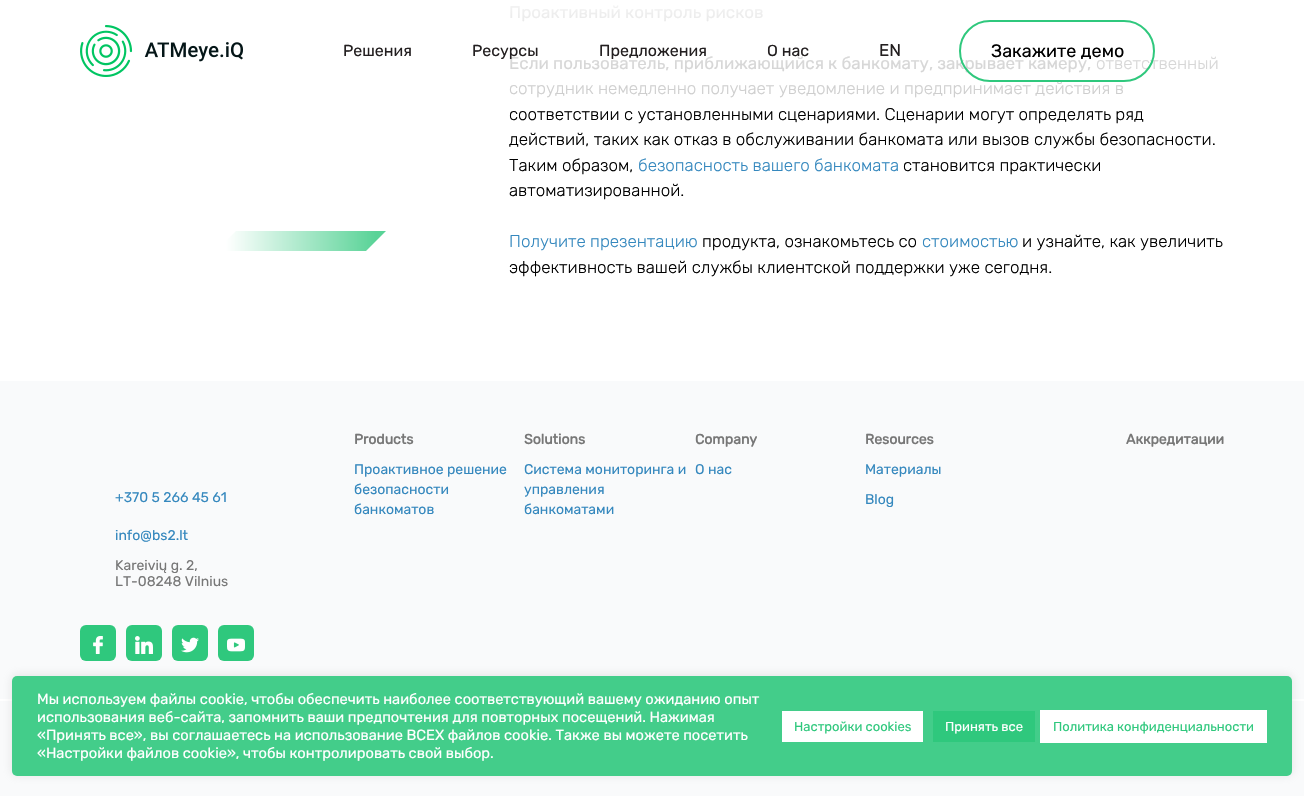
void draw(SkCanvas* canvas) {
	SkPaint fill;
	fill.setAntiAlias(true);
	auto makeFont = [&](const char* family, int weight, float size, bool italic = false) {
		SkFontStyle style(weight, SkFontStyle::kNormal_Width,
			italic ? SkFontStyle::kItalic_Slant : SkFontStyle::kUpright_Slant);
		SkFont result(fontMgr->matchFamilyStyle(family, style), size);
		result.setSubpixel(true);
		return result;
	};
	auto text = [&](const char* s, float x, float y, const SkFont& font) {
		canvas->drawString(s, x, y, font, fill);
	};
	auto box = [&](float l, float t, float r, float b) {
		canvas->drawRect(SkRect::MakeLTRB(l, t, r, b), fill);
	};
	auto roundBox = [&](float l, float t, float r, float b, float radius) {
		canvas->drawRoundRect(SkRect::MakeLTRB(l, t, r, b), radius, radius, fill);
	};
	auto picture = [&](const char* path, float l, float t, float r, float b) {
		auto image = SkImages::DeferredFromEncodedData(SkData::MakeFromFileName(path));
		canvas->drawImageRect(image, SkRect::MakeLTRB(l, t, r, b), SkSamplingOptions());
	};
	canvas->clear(0xFFFFFFFF);
	{
		const SkColor colors[] = {0xFF59D397, 0xFFFFFFFF};
		const float stops[] = {0, 1};
		const SkPoint ends[] = {{376, 241}, {226, 241}};
		fill.setShader(SkGradientShader::MakeLinear(ends, colors, stops, 2, SkTileMode::kClamp));
		fill.setAlpha(255);
	}
	canvas->drawPath(SkPathBuilder().moveTo(236, 231).lineTo(386, 231).lineTo(366, 251).lineTo(216, 251).close().detach(), fill);
	picture("image0.png", 80, 25, 243, 77);
	fill.setShader(nullptr);
	fill.setColor(0xFFF9FAFB);
	box(0, 381, 1304, 796);
	fill.setColor(0xFF2FC87D);
	roundBox(80, 625, 116, 661, 6);
	picture("image1.png", 93, 636, 103, 654);
	roundBox(126, 625, 162, 661, 6);
	picture("image2.png", 135, 636, 153, 654);
	roundBox(172, 625, 208, 661, 6);
	picture("image3.png", 181, 637, 199, 653);
	roundBox(218, 625, 254, 661, 6);
	picture("image4.png", 227, 638, 245, 652);
	fill.setColor(0xFFFFFFFF);
	box(0, 699, 1304, 701);
	canvas->save();
	canvas->clipPath(SkPathBuilder(SkPathFillType::kEvenOdd).moveTo(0, 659).lineTo(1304, 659).lineTo(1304, 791).lineTo(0, 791).close().moveTo(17, 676).lineTo(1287, 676).cubicTo(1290, 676, 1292, 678, 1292, 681).lineTo(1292, 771).cubicTo(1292, 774, 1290, 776, 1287, 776).lineTo(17, 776).cubicTo(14, 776, 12, 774, 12, 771).lineTo(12, 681).cubicTo(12, 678, 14, 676, 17, 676).close().detach(), true);
	fill.setColor(0x4DACABAB);
	fill.setMaskFilter(SkMaskFilter::MakeBlur(kNormal_SkBlurStyle, 5));
	canvas->drawRoundRect(SkRect::MakeLTRB(12, 675, 1292, 775), 5, 5, fill);
	fill.setMaskFilter(nullptr);
	canvas->restore();
	fill.setColor(0xE62FC87D);
	roundBox(12, 676, 1292, 776, 5);
	fill.setColor(0xFFFFFFFF);
	box(782, 711, 923, 742);
	fill.setColor(0xFF2FC87D);
	box(933, 711, 1035, 742);
	fill.setColor(0xFFFFFFFF);
	box(1040, 710, 1267, 743);
	auto font1 = makeFont("Rubik", 400, 17);
	fill.setColor(0xFFCCCCCC);
	text("Проактивный контроль рисков", 509, 18, font1);
	text("Если пользователь, приближающийся к банкомату, закрывает камеру,", 509, 69, font1);
	auto font2 = makeFont("Rubik", 300, 17);
	text("ответственный", 1096, 69, font2);
	text("сотрудник немедленно получает уведомление и предпринимает действия в", 509, 94, font2);
	fill.setColor(0xFF000000);
	text("соответствии с установленными сценариями. Сценарии могут определять ряд", 509, 120, font2);
	text("действий, таких как отказ в обслуживании банкомата или вызов службы безопасности.", 509, 145, font2);
	text("Таким образом,", 509, 171, font2);
	fill.setColor(0xFF3588BE);
	text("безопасность вашего банкомата", 638, 171, font2);
	fill.setColor(0xFF000000);
	text("становится практически", 903, 171, font2);
	text("автоматизированной.", 509, 196, font2);
	fill.setColor(0xFF3588BE);
	text("Получите презентацию", 509, 247, font2);
	fill.setColor(0xFF000000);
	text("продукта, ознакомьтесь со", 702, 247, font2);
	fill.setColor(0xFF3588BE);
	text("стоимостью", 922, 247, font2);
	fill.setColor(0xFF000000);
	text("и узнайте, как увеличить", 1022, 247, font2);
	text("эффективность вашей службы клиентской поддержки уже сегодня.", 509, 273, font2);
	{
		const SkColor colors[] = {0xCFFFFFFF, 0x5CFFFFFF, 0x00FFFFFF};
		const float stops[] = {0, 0.4f, 1};
		const SkPoint ends[] = {{652, 0}, {652, 102}};
		fill.setShader(SkGradientShader::MakeLinear(ends, colors, stops, 3, SkTileMode::kClamp));
		fill.setAlpha(255);
	}
	box(510, 5, 1217, 94);
	auto font3 = makeFont("Rubik", 400, 16);
	fill.setShader(nullptr);
	fill.setColor(0xFF231F20);
	text("Решения", 343, 56, font3);
	text("Ресурсы", 472, 56, font3);
	text("Предложения", 599, 56, font3);
	text("О нас", 767, 56, font3);
	text("EN", 879, 56, font1);
	fill.setStyle(SkPaint::kStroke_Style);
	fill.setStrokeWidth(2);
	fill.setColor(0xFF2FC87D);
	canvas->drawRoundRect(SkRect::MakeLTRB(960, 21, 1154, 81), 30, 30, fill);
	auto font4 = makeFont("Rubik", 400, 18);
	fill.setStyle(SkPaint::kFill_Style);
	fill.setColor(0xFF000000);
	text("Закажите демо", 991, 57, font4);
	auto font5 = makeFont("Rubik", 700, 14);
	fill.setColor(0xFF777777);
	text("Products", 354, 444, font5);
	auto font6 = makeFont("Rubik", 400, 14);
	fill.setColor(0xFF3588BE);
	text("Проактивное решение", 354, 474, font6);
	text("безопасности", 354, 494, font6);
	text("банкоматов", 354, 514, font6);
	fill.setColor(0xFF777777);
	text("Solutions", 524, 444, font5);
	fill.setColor(0xFF3588BE);
	text("Система мониторинга и", 524, 474, font6);
	text("управления", 524, 494, font6);
	text("банкоматами", 524, 514, font6);
	fill.setColor(0xFF777777);
	text("Company", 695, 444, font5);
	fill.setColor(0xFF3588BE);
	text("О нас", 695, 474, font6);
	fill.setColor(0xFF777777);
	text("Resources", 865, 444, font5);
	fill.setColor(0xFF3588BE);
	text("Материалы", 865, 474, font6);
	text("Blog", 865, 504, font6);
	fill.setColor(0xFF777777);
	text("Аккредитации", 1126, 444, font5);
	fill.setColor(0xFF3588BE);
	text("+370 5 266 45 61", 115, 502, font6);
	text("info@bs2.lt", 115, 540, font6);
	fill.setColor(0xFF777777);
	text("Kareivių g. 2,", 115, 570, font6);
	text("LT-08248 Vilnius", 115, 586, font6);
	auto font7 = makeFont("Rubik", 400, 14.65f);
	fill.setColor(0xFFFFFFFF);
	text("Мы используем файлы cookie, чтобы обеспечить наиболее соответствующий вашему ожиданию опыт", 37, 704, font7);
	text("использования веб-сайта, запомнить ваши предпочтения для повторных посещений. Нажимая", 37, 722, font7);
	text("«Принять все», вы соглашаетесь на использование ВСЕХ файлов cookie. Также вы можете посетить", 37, 740, font7);
	text("«Настройки файлов cookie», чтобы контролировать свой выбор.", 37, 758, font7);
	auto font8 = makeFont("Rubik", 400, 13);
	fill.setColor(0xFF2FC87D);
	text("Настройки cookies", 794, 731, font8);
	fill.setColor(0xFFFFFFFF);
	text("Принять все", 945, 731, font8);
	fill.setColor(0xFF2FC87D);
	text("Политика конфиденциальности", 1053, 731, font8);
}
